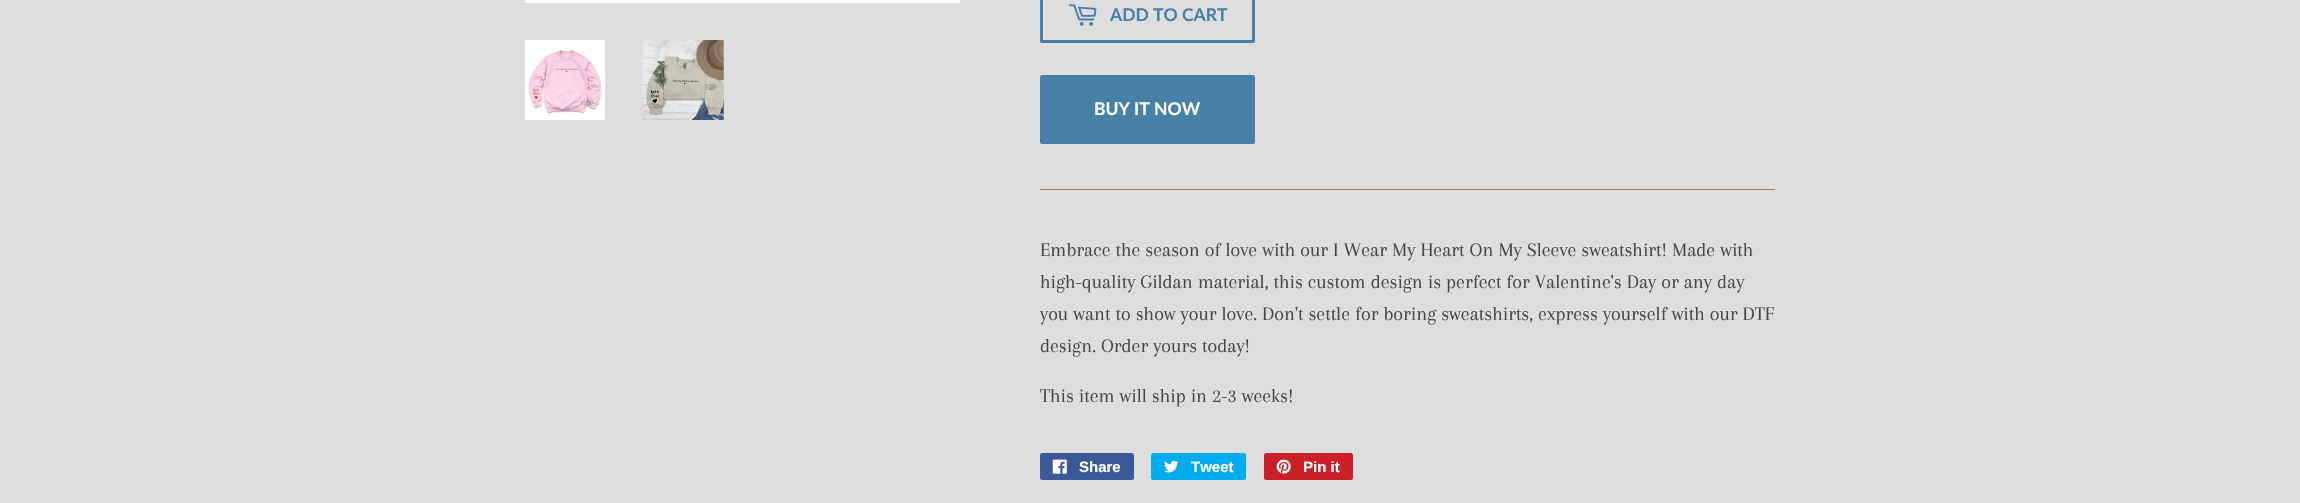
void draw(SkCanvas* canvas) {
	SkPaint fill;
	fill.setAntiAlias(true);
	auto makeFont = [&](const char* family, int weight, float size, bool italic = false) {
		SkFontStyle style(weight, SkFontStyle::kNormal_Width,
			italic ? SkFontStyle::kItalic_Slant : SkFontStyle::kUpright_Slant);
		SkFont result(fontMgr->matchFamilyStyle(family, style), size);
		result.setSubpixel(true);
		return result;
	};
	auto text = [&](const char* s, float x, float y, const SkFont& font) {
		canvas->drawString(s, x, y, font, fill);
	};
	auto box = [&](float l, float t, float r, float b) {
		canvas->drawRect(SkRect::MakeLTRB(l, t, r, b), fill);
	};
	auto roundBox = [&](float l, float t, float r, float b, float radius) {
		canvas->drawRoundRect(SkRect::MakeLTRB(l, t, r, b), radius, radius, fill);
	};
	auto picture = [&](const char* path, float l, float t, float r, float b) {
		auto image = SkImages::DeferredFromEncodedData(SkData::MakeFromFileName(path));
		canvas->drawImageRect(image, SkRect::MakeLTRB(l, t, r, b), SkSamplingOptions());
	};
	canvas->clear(0xFFDEDEDE);
	fill.setColor(0xFFFFFFFF);
	box(525, 0, 960, 3);
	picture("image0.png", 525, 40, 605, 120);
	picture("image1.png", 642, 40, 724, 120);
	fill.setStyle(SkPaint::kStroke_Style);
	fill.setStrokeWidth(3);
	fill.setColor(0xFF4781A7);
	canvas->drawRoundRect(SkRect::MakeLTRB(1041.5f, -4.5f, 1253.5f, 41.5f), 1, 1, fill);
	picture("image2.png", 1069, 4, 1097, 26);
	fill.setStyle(SkPaint::kFill_Style);
	roundBox(1040, 75, 1255, 144, 2.5f);
	fill.setColor(0xFFB27D58);
	box(1040, 189, 1775, 190);
	fill.setColor(0xFF3B5998);
	roundBox(1040, 453, 1134, 480, 2.5f);
	picture("image3.png", 1052, 459, 1067, 474);
	fill.setColor(0xFF00ACED);
	roundBox(1151, 453, 1246, 480, 2.5f);
	picture("image4.png", 1164, 460, 1179, 473);
	fill.setColor(0xFFCB2027);
	roundBox(1264, 453, 1353, 480, 2.5f);
	picture("image5.png", 1276, 459, 1291, 474);
	auto font1 = makeFont("Lato", 700, 17.5f);
	fill.setColor(0xFF4781A7);
	text("ADD TO CART", 1110, 21, font1);
	fill.setColor(0xFFFFFFFF);
	text("BUY IT NOW", 1094, 115, font1);
	auto font2 = makeFont("Arapey", 400, 20);
	fill.setColor(0xFF4B4444);
	text("Embrace the season of love with our I Wear My Heart On My Sleeve sweatshirt! Made with", 1040, 256, font2);
	text("high-quality Gildan material, this custom design is perfect for Valentine's Day or any day", 1040, 288, font2);
	text("you want to show your love. Don't settle for boring sweatshirts, express yourself with our DTF", 1040, 320, font2);
	text("design. Order yours today!", 1040, 352, font2);
	text("This item will ship in 2-3 weeks!", 1040, 402, font2);
	auto font3 = makeFont("Liberation Sans", 700, 15);
	fill.setColor(0xFFFFFFFF);
	text("Share", 1079, 472, font3);
	text("Tweet", 1191, 472, font3);
	text("Pin it", 1303, 472, font3);
}
